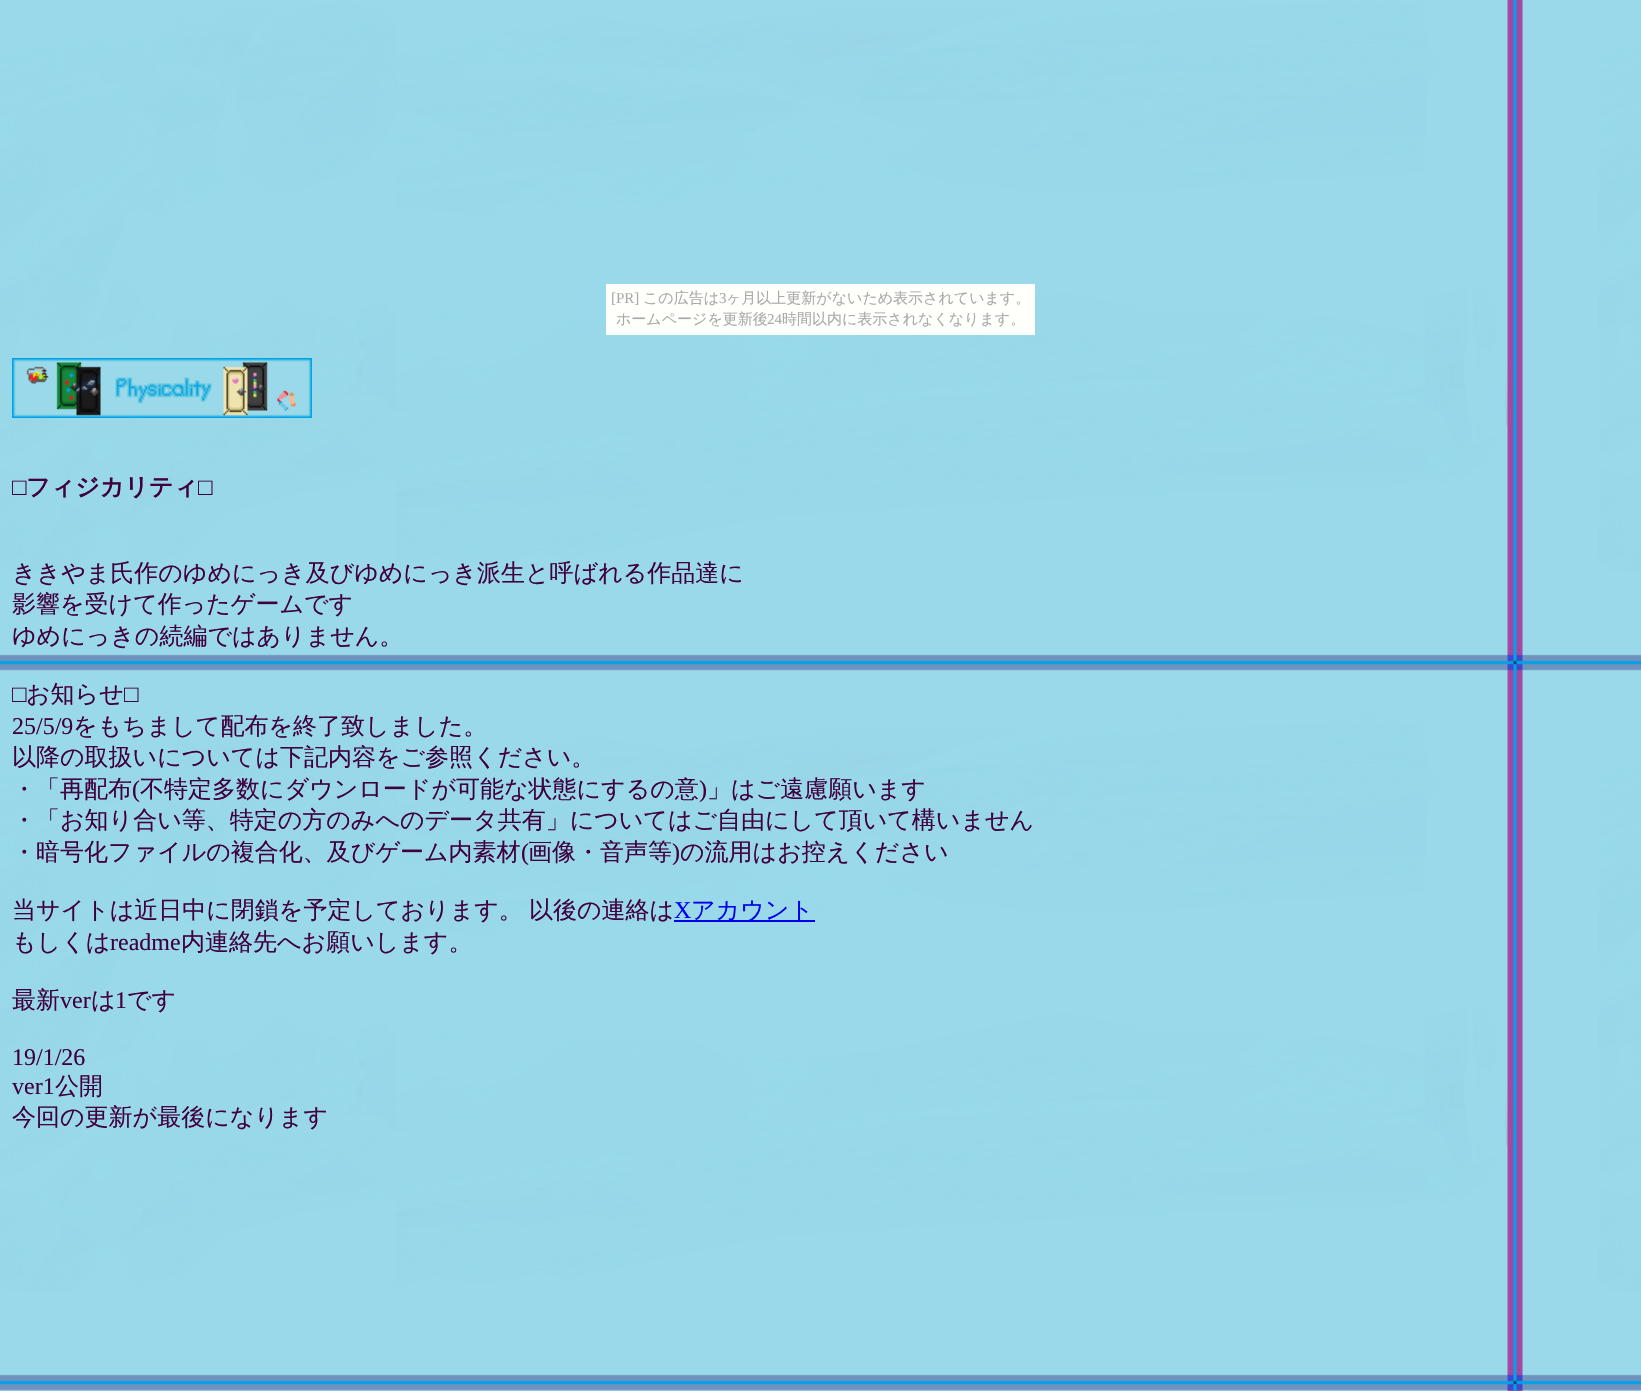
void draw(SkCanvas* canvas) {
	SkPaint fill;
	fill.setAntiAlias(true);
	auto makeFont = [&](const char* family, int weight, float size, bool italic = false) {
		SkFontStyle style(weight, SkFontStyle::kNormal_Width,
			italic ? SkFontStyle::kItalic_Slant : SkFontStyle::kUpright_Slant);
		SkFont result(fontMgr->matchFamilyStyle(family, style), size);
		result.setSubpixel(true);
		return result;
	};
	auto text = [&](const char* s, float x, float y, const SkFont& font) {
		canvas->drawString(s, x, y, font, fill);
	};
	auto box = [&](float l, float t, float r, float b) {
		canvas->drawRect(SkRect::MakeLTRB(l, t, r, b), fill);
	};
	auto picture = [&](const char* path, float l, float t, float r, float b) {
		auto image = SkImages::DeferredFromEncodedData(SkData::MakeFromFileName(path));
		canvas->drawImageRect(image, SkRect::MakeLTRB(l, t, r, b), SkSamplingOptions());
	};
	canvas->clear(0xFFFFFFFF);
	picture("image0.png", 0, 0, 1641, 1391);
	fill.setColor(0xFFFFFFFC);
	box(606, 284, 1035, 335);
	picture("image1.png", 12, 358, 312, 418);
	fill.setColor(0xFF0000EE);
	box(674, 920, 815, 922);
	auto font1 = makeFont("Liberation Serif", 400, 15);
	fill.setColor(0xFFAAAAAA);
	text("[PR]", 611, 303, font1);
	auto font2 = makeFont("WenQuanYi Zen Hei", 500, 15);
	text("この広告は", 643, 303, font2);
	text("3", 719, 303, font1);
	text("ヶ月以上更新がないため表示されています。", 726, 303, font2);
	text("ホームページを更新後", 616, 324, font2);
	text("24", 767, 324, font1);
	text("時間以内に表示されなくなります。", 782, 324, font2);
	auto font3 = makeFont("Liberation Serif", 700, 24);
	fill.setColor(0xFF400040);
	text("□", 12, 495, font3);
	auto font4 = makeFont("WenQuanYi Zen Hei", 700, 24);
	text("フィジカリティ", 26, 495, font4);
	text("□", 198, 495, font3);
	auto font5 = makeFont("WenQuanYi Zen Hei", 500, 24);
	text("ききやま氏作のゆめにっき及びゆめにっき派生と呼ばれる作品達に", 12, 581, font5);
	text("影響を受けて作ったゲームです", 12, 612, font5);
	text("ゆめにっきの続編ではありません。", 12, 644, font5);
	auto font6 = makeFont("Liberation Serif", 400, 24);
	text("□", 12, 702, font6);
	text("お知らせ", 26, 702, font5);
	text("□", 124, 702, font6);
	text("25/5/9", 12, 734, font6);
	text("をもちまして配布を終了致しました。", 73, 734, font5);
	text("以降の取扱いについては下記内容をご参照ください。", 12, 765, font5);
	text("・「再配布", 12, 797, font5);
	text("(", 132, 797, font6);
	text("不特定多数にダウンロードが可能な状態にするの意", 140, 797, font5);
	text(")", 699, 797, font6);
	text("」はご遠慮願います", 707, 797, font5);
	text("・「お知り合い等、特定の方のみへのデータ共有」についてはご自由にして頂いて構いません", 12, 828, font5);
	text("・暗号化ファイルの複合化、及びゲーム内素材", 12, 860, font5);
	text("(", 521, 860, font6);
	text("画像・音声等", 528, 860, font5);
	text(")", 672, 860, font6);
	text("の流用はお控えください", 680, 860, font5);
	text("当サイトは近日中に閉鎖を予定しております。", 12, 918, font5);
	text("以後の連絡は", 529, 918, font5);
	fill.setColor(0xFF0000EE);
	text("X", 674, 918, font6);
	text("アカウント", 691, 918, font5);
	fill.setColor(0xFF400040);
	text("もしくは", 12, 950, font5);
	text("readme", 110, 950, font6);
	text("内連絡先へお願いします。", 181, 950, font5);
	text("最新", 12, 1008, font5);
	text("ver", 60, 1008, font6);
	text("は", 91, 1008, font5);
	text("1", 115, 1008, font6);
	text("です", 127, 1008, font5);
	text("19/1/26", 12, 1065, font6);
	text("ver1", 12, 1094, font6);
	text("公開", 55, 1094, font5);
	text("今回の更新が最後になります", 12, 1125, font5);
}
